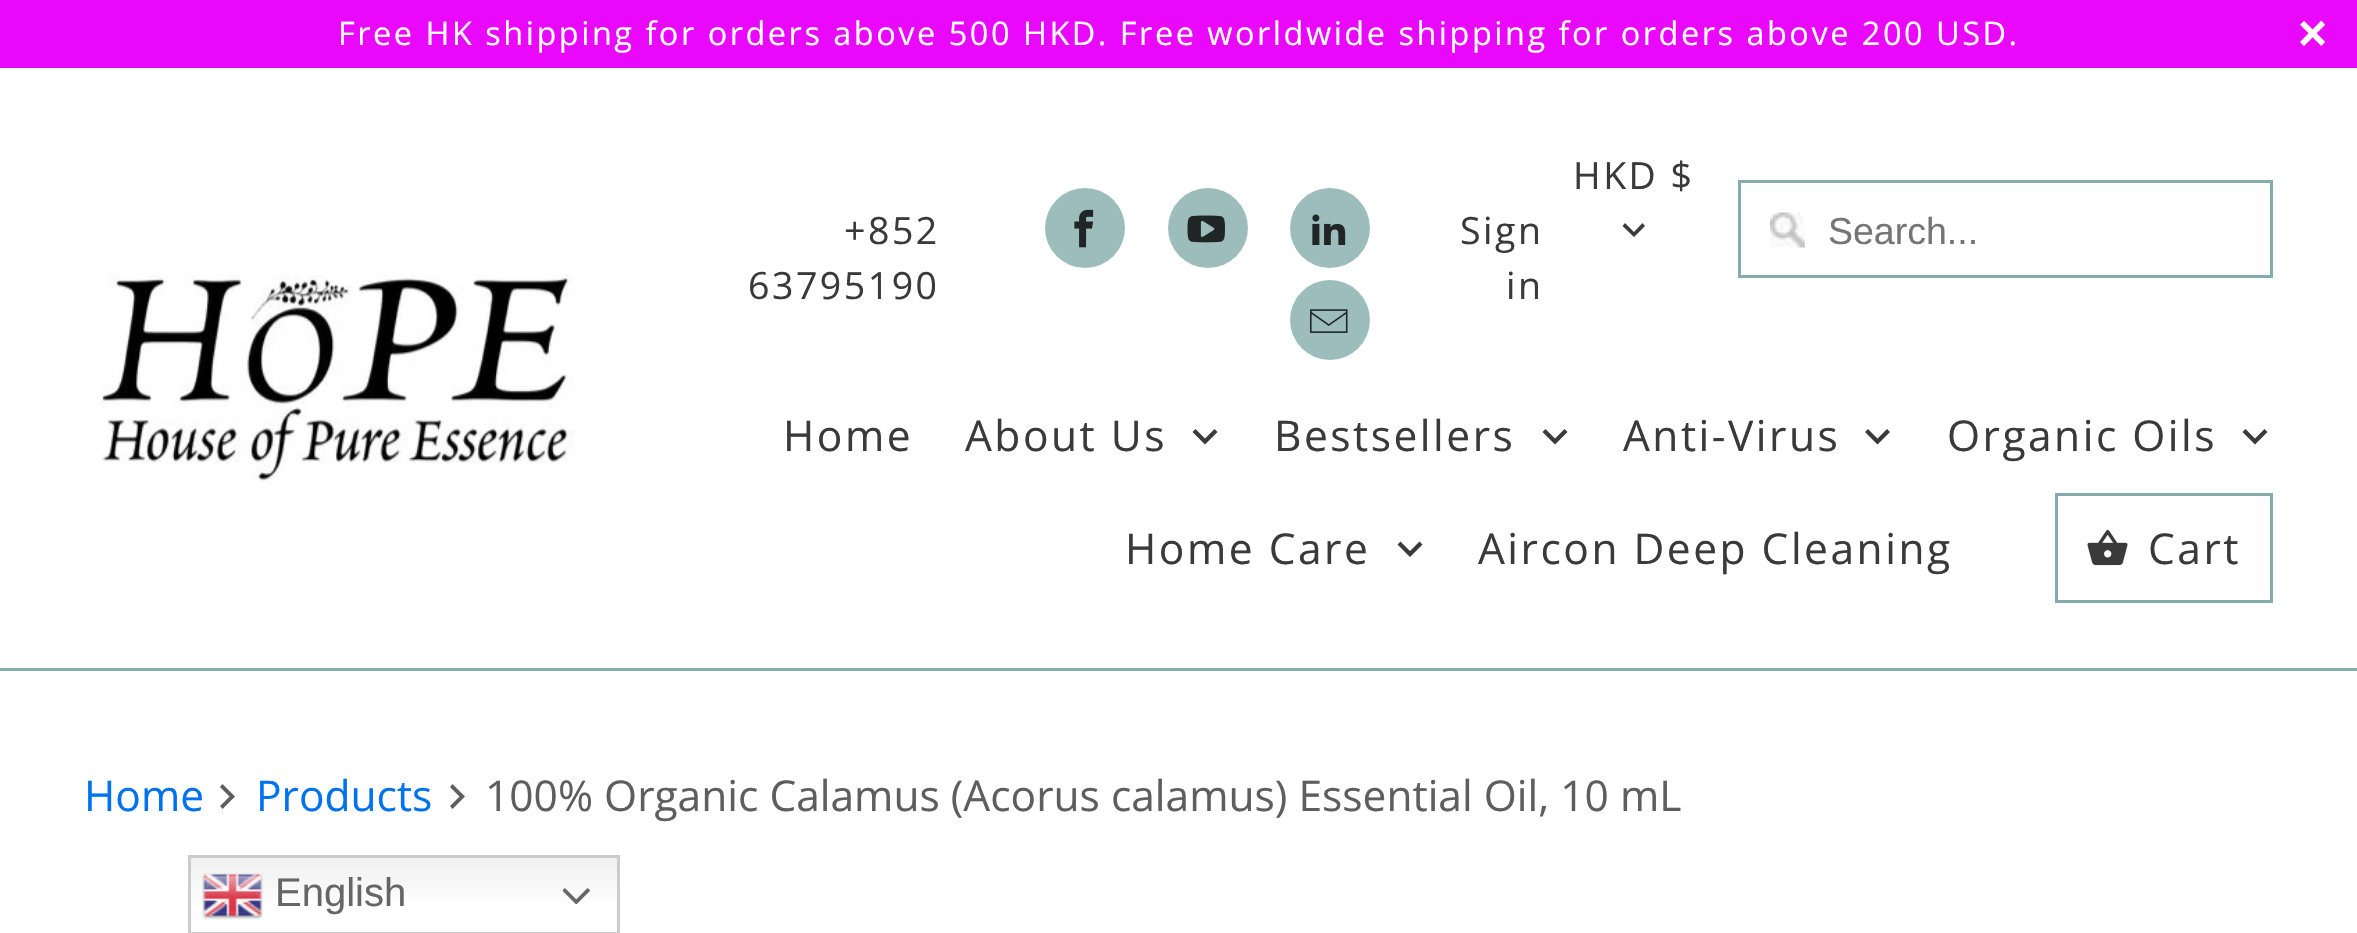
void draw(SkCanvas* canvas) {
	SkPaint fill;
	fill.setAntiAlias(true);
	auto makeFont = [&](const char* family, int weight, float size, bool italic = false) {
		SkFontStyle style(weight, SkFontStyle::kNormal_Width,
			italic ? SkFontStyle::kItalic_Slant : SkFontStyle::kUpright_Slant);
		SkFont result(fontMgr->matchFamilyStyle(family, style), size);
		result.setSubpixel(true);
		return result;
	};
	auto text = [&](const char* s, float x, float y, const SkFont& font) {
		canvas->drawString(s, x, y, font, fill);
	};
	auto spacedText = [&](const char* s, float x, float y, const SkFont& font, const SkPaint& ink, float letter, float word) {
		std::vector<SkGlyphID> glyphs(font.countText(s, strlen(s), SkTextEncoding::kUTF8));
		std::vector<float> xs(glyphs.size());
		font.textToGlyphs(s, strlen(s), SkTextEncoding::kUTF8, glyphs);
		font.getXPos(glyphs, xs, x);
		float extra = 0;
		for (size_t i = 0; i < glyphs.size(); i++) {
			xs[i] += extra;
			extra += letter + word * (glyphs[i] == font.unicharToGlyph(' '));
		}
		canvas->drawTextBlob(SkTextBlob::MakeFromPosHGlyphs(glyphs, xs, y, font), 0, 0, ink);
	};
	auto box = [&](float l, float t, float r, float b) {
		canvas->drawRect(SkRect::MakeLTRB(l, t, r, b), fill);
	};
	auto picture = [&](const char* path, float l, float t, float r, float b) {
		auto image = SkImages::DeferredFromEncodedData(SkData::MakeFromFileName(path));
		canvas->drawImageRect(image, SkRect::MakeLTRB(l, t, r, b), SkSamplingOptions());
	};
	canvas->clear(0xFFFFFFFF);
	fill.setColor(0xFFE908FB);
	box(0, 0, 2357, 68);
	fill.setColor(0xFF84ACAC);
	box(0, 668, 2357, 671);
	picture("image0.png", 101, 274, 574, 484);
	fill.setColor(0xFF3A3A3A);
	canvas->drawPath(SkPathBuilder().moveTo(1642.5f, 223).lineTo(1634, 232).lineTo(1625, 223).lineTo(1622.5f, 226).lineTo(1634, 237).lineTo(1645, 226).close().detach(), fill);
	fill.setColor(0xFF9DBDBD);
	canvas->drawCircle(1085, 228, 40, fill);
	picture("image1.png", 1074, 209, 1094, 248);
	canvas->drawCircle(1208, 228, 40, fill);
	picture("image2.png", 1187, 215, 1225, 243);
	canvas->drawCircle(1330, 228, 40, fill);
	picture("image3.png", 1312, 214, 1346, 245);
	canvas->drawCircle(1330, 320, 40, fill);
	picture("image4.png", 1310, 309, 1348, 333);
	picture("image5.png", 1770, 212, 1805, 248);
	fill.setStyle(SkPaint::kStroke_Style);
	fill.setStrokeWidth(3);
	fill.setColor(0xFF84ACAC);
	canvas->drawRect(SkRect::MakeLTRB(1739.5f, 181.5f, 2271.5f, 276.5f), fill);
	fill.setStyle(SkPaint::kFill_Style);
	fill.setColor(0xFF3A3A3A);
	canvas->drawPath(SkPathBuilder().moveTo(1214.5f, 429).lineTo(1205, 438.5f).lineTo(1195.5f, 429).lineTo(1192.5f, 432).lineTo(1205, 444.5f).lineTo(1217.5f, 432).close().detach(), fill);
	canvas->drawPath(SkPathBuilder().moveTo(1564.5f, 429).lineTo(1555, 438.5f).lineTo(1545.5f, 429).lineTo(1542.5f, 432).lineTo(1555, 444.5f).lineTo(1567.5f, 432).close().detach(), fill);
	canvas->drawPath(SkPathBuilder().moveTo(1887, 429).lineTo(1877.5f, 438.5f).lineTo(1868, 429).lineTo(1865, 432).lineTo(1877.5f, 444.5f).lineTo(1890, 432).close().detach(), fill);
	canvas->drawPath(SkPathBuilder().moveTo(2264.5f, 429).lineTo(2255, 438.5f).lineTo(2245.5f, 429).lineTo(2242.5f, 432).lineTo(2255, 444.5f).lineTo(2267.5f, 432).close().detach(), fill);
	canvas->drawPath(SkPathBuilder().moveTo(1419.5f, 541.5f).lineTo(1410, 551).lineTo(1400.5f, 541.5f).lineTo(1397.5f, 544.5f).lineTo(1410, 557).lineTo(1422.5f, 544.5f).close().detach(), fill);
	fill.setStyle(SkPaint::kStroke_Style);
	fill.setColor(0xFF84ACAC);
	canvas->drawRect(SkRect::MakeLTRB(2056.5f, 494.5f, 2271.5f, 601.5f), fill);
	picture("image6.png", 2087, 530, 2128, 566);
	fill.setStyle(SkPaint::kFill_Style);
	fill.setColor(0xFF5E5E5E);
	canvas->drawPath(SkPathBuilder().moveTo(222.5f, 784).lineTo(220, 787).lineTo(229.5f, 796.5f).lineTo(220, 806).lineTo(222.5f, 809).lineTo(235, 796.5f).close().detach(), fill);
	canvas->drawPath(SkPathBuilder().moveTo(452.5f, 784).lineTo(450, 787).lineTo(459.5f, 796.5f).lineTo(450, 806).lineTo(452.5f, 809).lineTo(465, 796.5f).close().detach(), fill);
	{
		const SkColor colors[] = {0xFFEFEFEF, 0xFFFFFFFF};
		const float stops[] = {0, 0.7f};
		const SkPoint ends[] = {{404, 855}, {404, 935}};
		fill.setShader(SkGradientShader::MakeLinear(ends, colors, stops, 2, SkTileMode::kClamp));
		fill.setAlpha(255);
	}
	box(191, 858, 617, 902);
	fill.setStyle(SkPaint::kStroke_Style);
	fill.setShader(nullptr);
	fill.setColor(0xFFCCCCCC);
	canvas->drawRect(SkRect::MakeLTRB(189.5f, 856.5f, 618.5f, 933.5f), fill);
	picture("image7.png", 202, 873, 263, 920);
	picture("image8.png", 563, 888, 590, 905);
	auto font1 = makeFont("Open Sans", 400, 32.5f);
	fill.setStyle(SkPaint::kFill_Style);
	fill.setColor(0xFFFFFFFF);
	spacedText("Free HK shipping for orders above 500 HKD. Free worldwide shipping for orders above 200 USD.", 338, 45, font1, fill, 2.5f, 0);
	auto font2 = makeFont("Liberation Sans", 700, 50);
	spacedText("×", 2298, 50, font2, fill, 2.5f, 0);
	auto font3 = makeFont("Open Sans", 400, 37.5f);
	fill.setColor(0xFF3A3A3A);
	spacedText("HKD $", 1573, 189, font3, fill, 2.5f, 0);
	spacedText("+852", 844, 244, font3, fill, 2.5f, 0);
	spacedText("63795190", 748, 299, font3, fill, 2.5f, 0);
	spacedText("Sign", 1460, 244, font3, fill, 2.5f, 0);
	spacedText("in", 1506, 299, font3, fill, 2.5f, 0);
	auto font4 = makeFont("Liberation Sans", 400, 37.5f);
	fill.setColor(0xFF757575);
	text("Search...", 1828, 244, font4);
	auto font5 = makeFont("Open Sans", 400, 42.5f);
	fill.setColor(0xFF3A3A3A);
	spacedText("Home", 783, 451, font5, fill, 2.5f, 0);
	spacedText("About Us", 965, 451, font5, fill, 2.5f, 0);
	spacedText("Bestsellers", 1274, 451, font5, fill, 2.5f, 0);
	spacedText("Anti-Virus", 1623, 451, font5, fill, 2.5f, 0);
	spacedText("Organic Oils", 1947, 451, font5, fill, 2.5f, 0);
	spacedText("Home Care", 1125, 564, font5, fill, 2.5f, 0);
	spacedText("Aircon Deep Cleaning", 1478, 564, font5, fill, 2.5f, 0);
	spacedText("Cart", 2148, 564, font5, fill, 2.5f, 0);
	fill.setColor(0xFF0072EF);
	text("Home", 84, 811, font5);
	text("Products", 256, 811, font5);
	fill.setColor(0xFF5E5E5E);
	text("100% Organic Calamus (Acorus calamus) Essential Oil, 10 mL", 485, 811, font5);
	auto font6 = makeFont("Liberation Sans", 400, 40);
	fill.setColor(0xFF666666);
	text("English", 275, 906, font6);
}
